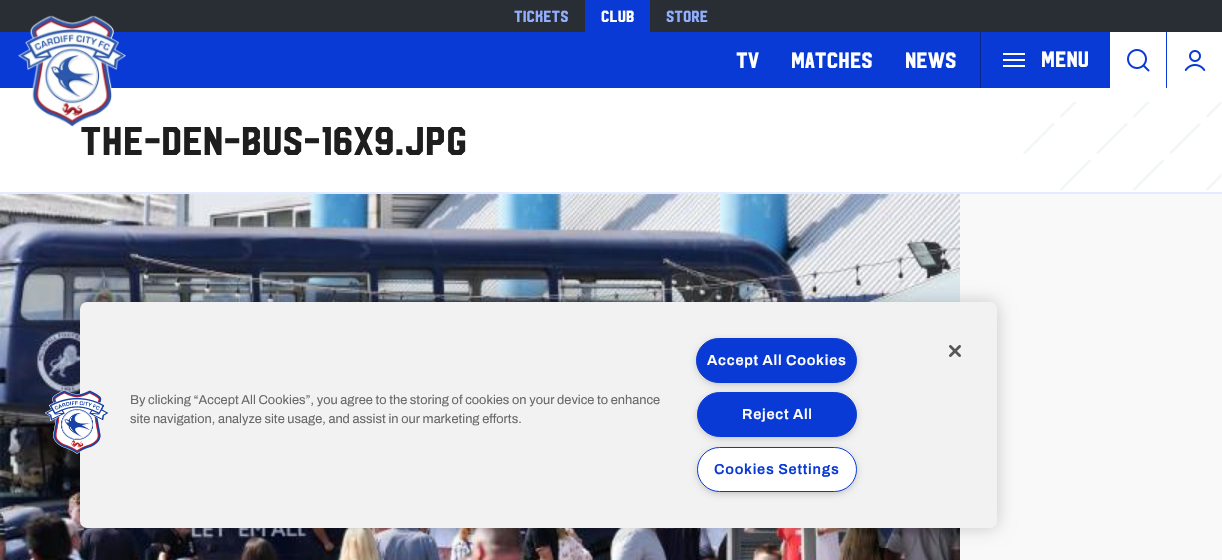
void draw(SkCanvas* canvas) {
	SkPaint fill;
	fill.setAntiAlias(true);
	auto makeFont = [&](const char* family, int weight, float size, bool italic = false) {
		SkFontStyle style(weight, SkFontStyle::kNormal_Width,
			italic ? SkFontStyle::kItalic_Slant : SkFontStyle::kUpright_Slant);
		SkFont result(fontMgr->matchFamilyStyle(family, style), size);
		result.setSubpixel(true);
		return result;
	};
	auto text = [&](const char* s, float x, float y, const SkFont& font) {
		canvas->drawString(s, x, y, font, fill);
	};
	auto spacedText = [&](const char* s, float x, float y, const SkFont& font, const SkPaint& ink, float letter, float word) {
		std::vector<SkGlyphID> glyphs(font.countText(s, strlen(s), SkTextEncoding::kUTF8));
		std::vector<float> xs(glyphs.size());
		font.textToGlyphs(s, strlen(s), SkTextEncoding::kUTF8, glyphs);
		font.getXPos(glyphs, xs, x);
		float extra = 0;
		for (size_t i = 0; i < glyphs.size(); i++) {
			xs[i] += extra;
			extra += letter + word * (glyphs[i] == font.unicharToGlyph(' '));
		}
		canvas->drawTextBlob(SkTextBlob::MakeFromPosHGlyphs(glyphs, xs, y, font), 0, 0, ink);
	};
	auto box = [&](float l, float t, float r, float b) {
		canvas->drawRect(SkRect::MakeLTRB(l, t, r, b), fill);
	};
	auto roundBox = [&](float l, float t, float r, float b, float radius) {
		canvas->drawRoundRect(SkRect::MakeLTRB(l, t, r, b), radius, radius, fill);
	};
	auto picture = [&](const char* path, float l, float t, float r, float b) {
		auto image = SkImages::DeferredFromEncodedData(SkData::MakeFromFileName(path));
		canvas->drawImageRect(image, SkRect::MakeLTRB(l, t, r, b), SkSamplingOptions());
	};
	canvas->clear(0xFFF9F9F9);
	fill.setColor(0xFF292D34);
	box(0, 0, 1222, 32);
	fill.setColor(0xFF093AD6);
	box(585, 0, 650, 32);
	box(0, 32, 1167, 88);
	fill.setColor(0xFF06268D);
	box(980, 32, 981, 88);
	fill.setColor(0xFFFFFFFF);
	box(1003, 59, 1025, 61);
	box(1003, 53, 1025, 55);
	box(1003, 65, 1025, 67);
	box(1110, 32, 1166, 88);
	picture("image1.png", 1127, 49, 1150, 72);
	box(1167, 32, 1222, 88);
	picture("image2.png", 1184, 50, 1206, 71);
	box(0, 88, 1222, 192);
	picture("image3.png", 1023, 102, 1222, 191);
	fill.setColor(0xFFE4EAFF);
	box(0, 192, 1222, 194);
	picture("image4.png", 0, 194, 960, 560);
	fill.setColor(0x33000000);
	fill.setMaskFilter(SkMaskFilter::MakeBlur(kNormal_SkBlurStyle, 9));
	canvas->drawRoundRect(SkRect::MakeLTRB(80, 302, 997, 528), 7, 7, fill);
	fill.setMaskFilter(nullptr);
	fill.setColor(0xFFF2F2F2);
	roundBox(80, 302, 997, 528, 7);
	picture("image5.png", 45, 390, 109, 454);
	picture("image6.png", 949, 345, 961, 357);
	fill.setColor(0xFF999999);
	fill.setMaskFilter(SkMaskFilter::MakeBlur(kNormal_SkBlurStyle, 5));
	canvas->drawRoundRect(SkRect::MakeLTRB(699, 343, 854, 382), 19.5f, 19.5f, fill);
	fill.setMaskFilter(nullptr);
	fill.setColor(0xFF093AD6);
	canvas->drawRoundRect(SkRect::MakeLTRB(696.5f, 338.5f, 856.5f, 382.5f), 22, 22, fill);
	fill.setStyle(SkPaint::kStroke_Style);
	fill.setStrokeWidth(1);
	canvas->drawRoundRect(SkRect::MakeLTRB(696.5f, 338.5f, 856.5f, 382.5f), 22, 22, fill);
	fill.setStyle(SkPaint::kFill_Style);
	fill.setColor(0xFF999999);
	fill.setMaskFilter(SkMaskFilter::MakeBlur(kNormal_SkBlurStyle, 5));
	canvas->drawRoundRect(SkRect::MakeLTRB(700, 397, 854, 436), 19.5f, 19.5f, fill);
	fill.setMaskFilter(nullptr);
	fill.setColor(0xFF093AD6);
	canvas->drawRoundRect(SkRect::MakeLTRB(697.5f, 392.5f, 856.5f, 436.5f), 22, 22, fill);
	fill.setStyle(SkPaint::kStroke_Style);
	canvas->drawRoundRect(SkRect::MakeLTRB(697.5f, 392.5f, 856.5f, 436.5f), 22, 22, fill);
	fill.setStyle(SkPaint::kFill_Style);
	fill.setColor(0xFF999999);
	fill.setMaskFilter(SkMaskFilter::MakeBlur(kNormal_SkBlurStyle, 5));
	canvas->drawRoundRect(SkRect::MakeLTRB(700, 452, 854, 491), 19.5f, 19.5f, fill);
	fill.setMaskFilter(nullptr);
	fill.setColor(0xFFFFFFFF);
	canvas->drawRoundRect(SkRect::MakeLTRB(697.5f, 447.5f, 856.5f, 491.5f), 22, 22, fill);
	fill.setStyle(SkPaint::kStroke_Style);
	fill.setColor(0xFF093AD6);
	canvas->drawRoundRect(SkRect::MakeLTRB(697.5f, 447.5f, 856.5f, 491.5f), 22, 22, fill);
	auto font1 = makeFont("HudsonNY", 400, 16);
	fill.setStyle(SkPaint::kFill_Style);
	fill.setColor(0xFF91AEFF);
	text("Tickets", 514, 22, font1);
	fill.setColor(0xFFFFFFFF);
	text("Club", 601, 22, font1);
	fill.setColor(0xFF91AEFF);
	text("Store", 666, 22, font1);
	auto font2 = makeFont("HudsonNY", 400, 22);
	fill.setColor(0xFFFFFFFF);
	text("TV", 736, 68, font2);
	text("Matches", 791, 68, font2);
	text("News", 905, 68, font2);
	text("Menu", 1041, 67, font2);
	auto font3 = makeFont("HudsonNY", 400, 40);
	fill.setColor(0xFF1E1E1E);
	text("the-den-bus-16x9.jpg", 80, 155, font3);
	picture("image0.png", 18, 15, 126, 127);
	auto font4 = makeFont("Archivo", 400, 12.8f);
	fill.setColor(0xFF696969);
	text("By clicking “Accept All Cookies”, you agree to the storing of cookies on your device to enhance", 130, 404, font4);
	text("site navigation, analyze site usage, and assist in our marketing efforts.", 130, 423, font4);
	auto font5 = makeFont("Archivo", 600, 14.5f);
	fill.setColor(0xFFFFFFFF);
	spacedText("Accept All Cookies", 707, 365, font5, fill, 0.75f, 0);
	spacedText("Reject All", 742, 419, font5, fill, 0.75f, 0);
	fill.setColor(0xFF093AD6);
	spacedText("Cookies Settings", 714, 474, font5, fill, 0.75f, 0);
}
